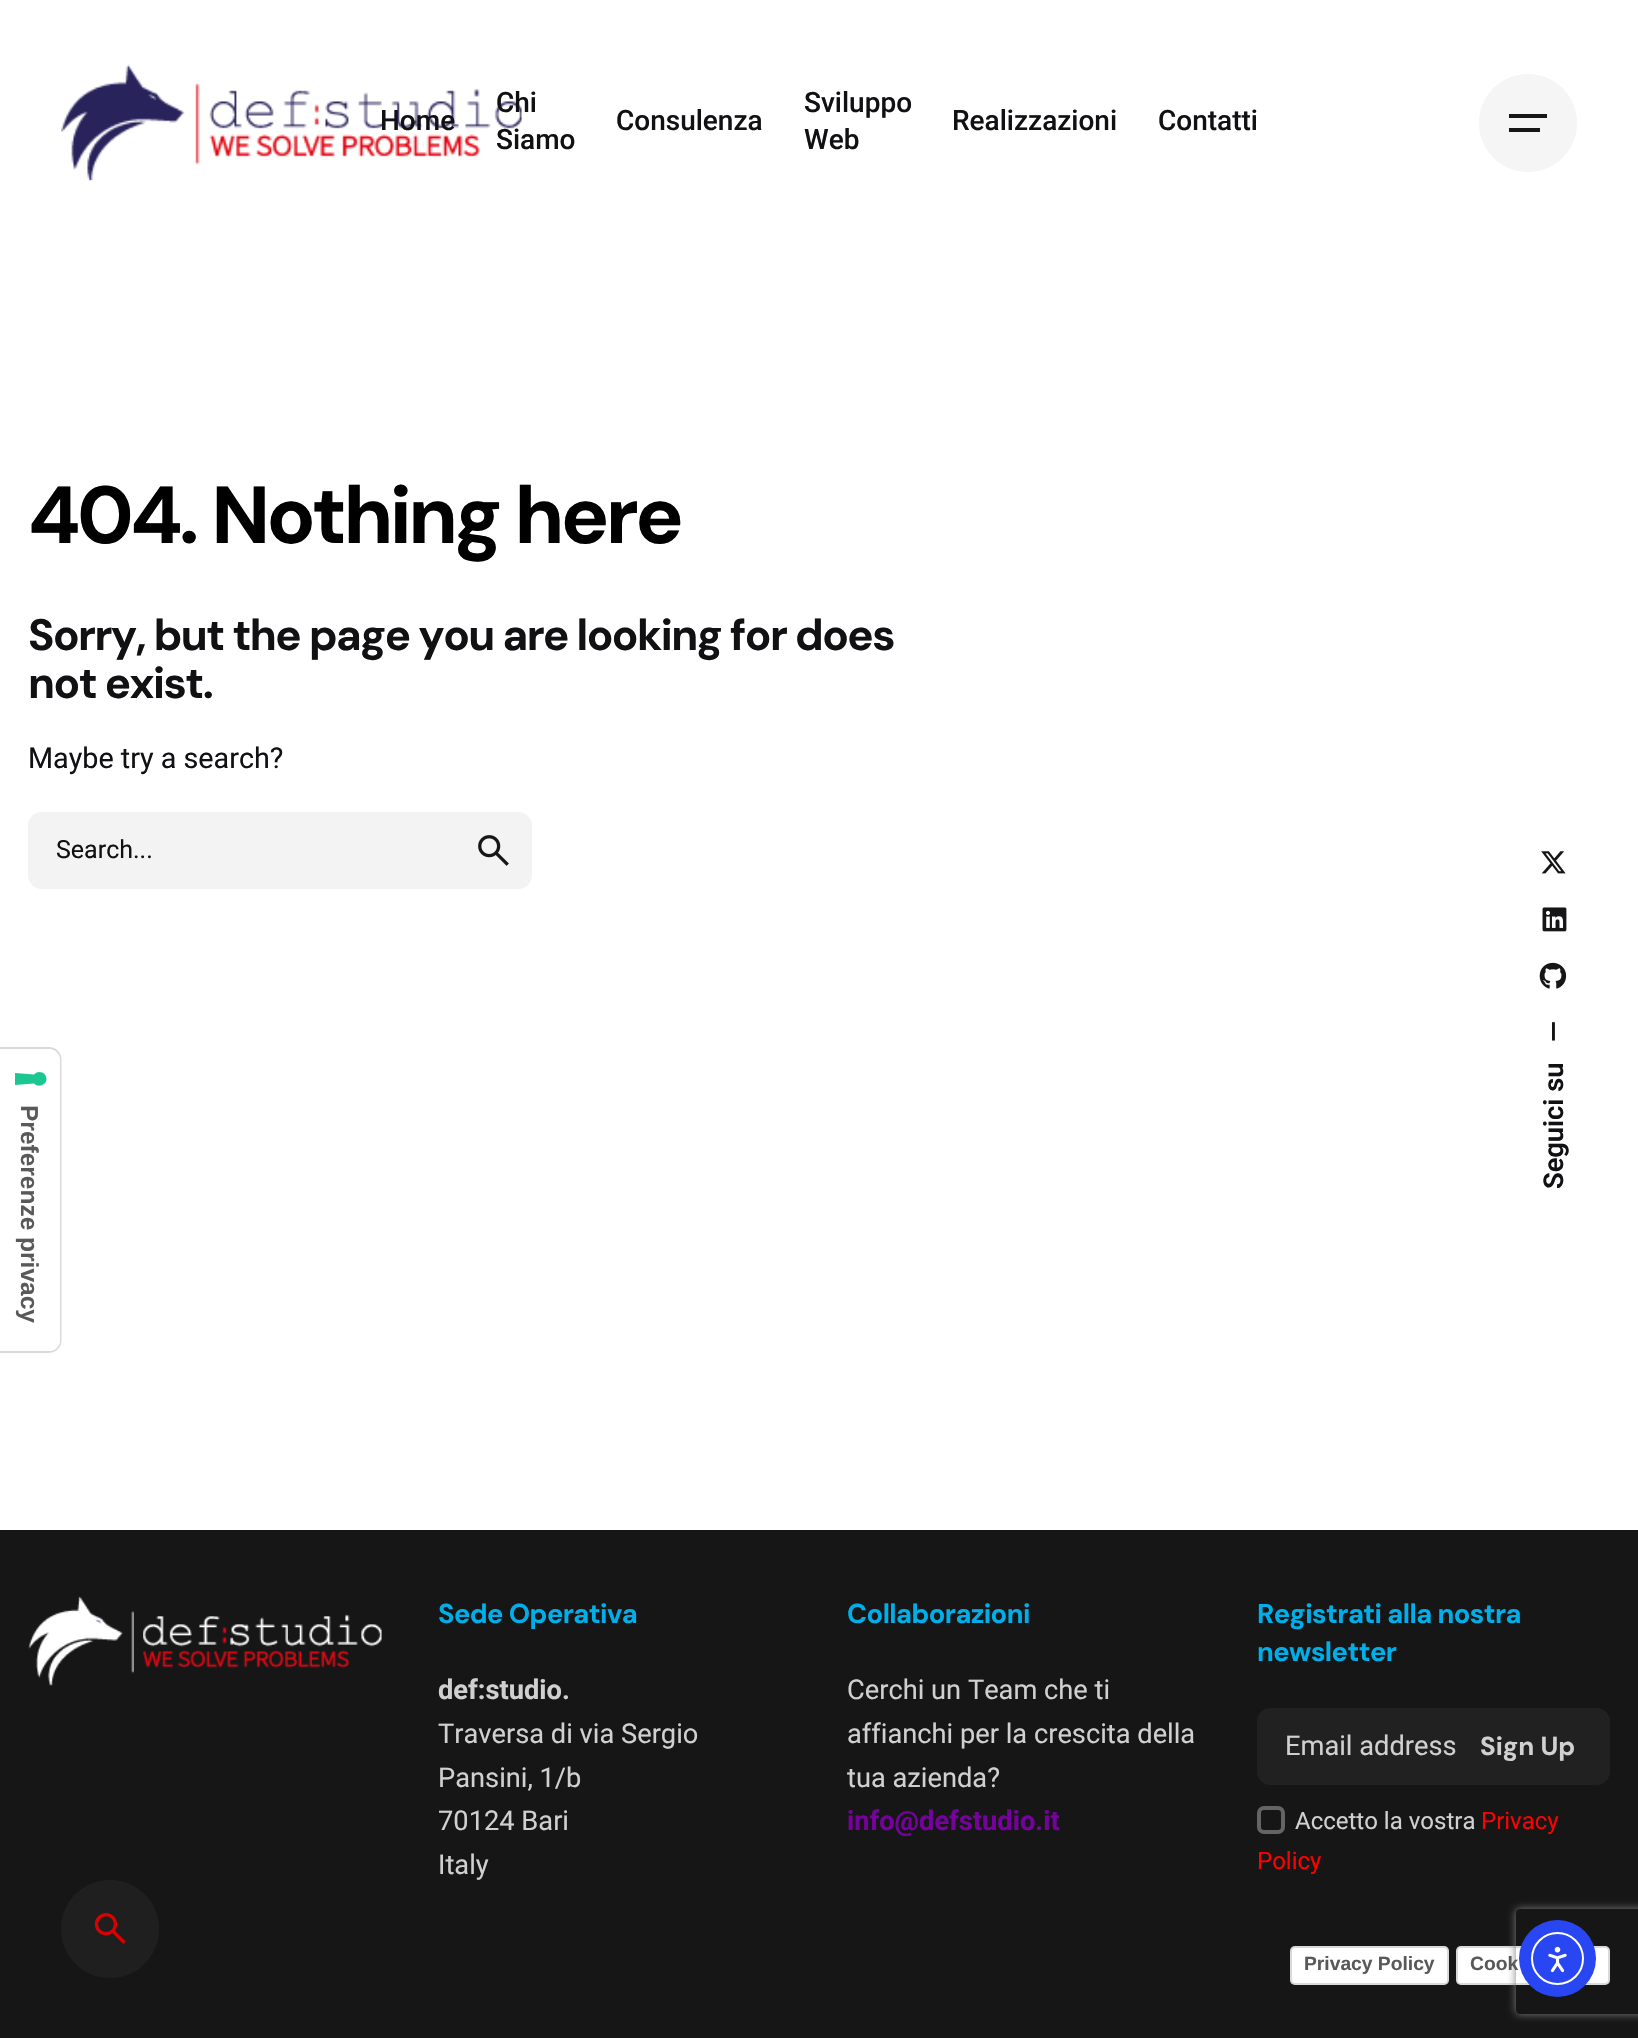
void draw(SkCanvas* canvas) {
	SkPaint fill;
	fill.setAntiAlias(true);
	auto makeFont = [&](const char* family, int weight, float size, bool italic = false) {
		SkFontStyle style(weight, SkFontStyle::kNormal_Width,
			italic ? SkFontStyle::kItalic_Slant : SkFontStyle::kUpright_Slant);
		SkFont result(fontMgr->matchFamilyStyle(family, style), size);
		result.setSubpixel(true);
		return result;
	};
	auto text = [&](const char* s, float x, float y, const SkFont& font) {
		canvas->drawString(s, x, y, font, fill);
	};
	auto spacedText = [&](const char* s, float x, float y, const SkFont& font, const SkPaint& ink, float letter, float word) {
		std::vector<SkGlyphID> glyphs(font.countText(s, strlen(s), SkTextEncoding::kUTF8));
		std::vector<float> xs(glyphs.size());
		font.textToGlyphs(s, strlen(s), SkTextEncoding::kUTF8, glyphs);
		font.getXPos(glyphs, xs, x);
		float extra = 0;
		for (size_t i = 0; i < glyphs.size(); i++) {
			xs[i] += extra;
			extra += letter + word * (glyphs[i] == font.unicharToGlyph(' '));
		}
		canvas->drawTextBlob(SkTextBlob::MakeFromPosHGlyphs(glyphs, xs, y, font), 0, 0, ink);
	};
	auto box = [&](float l, float t, float r, float b) {
		canvas->drawRect(SkRect::MakeLTRB(l, t, r, b), fill);
	};
	auto roundBox = [&](float l, float t, float r, float b, float radius) {
		canvas->drawRoundRect(SkRect::MakeLTRB(l, t, r, b), radius, radius, fill);
	};
	auto picture = [&](const char* path, float l, float t, float r, float b) {
		auto image = SkImages::DeferredFromEncodedData(SkData::MakeFromFileName(path));
		canvas->drawImageRect(image, SkRect::MakeLTRB(l, t, r, b), SkSamplingOptions());
	};
	canvas->clear(0xFFFFFFFF);
	fill.setStyle(SkPaint::kStroke_Style);
	fill.setStrokeWidth(1.8f);
	fill.setColor(0xFFD9D9D9);
	canvas->drawPath(SkPathBuilder().moveTo(60.5f, 1059.5f).lineTo(60.5f, 1340.5f).cubicTo(60.5f, 1347, 55.5f, 1352, 49, 1352).lineTo(-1, 1352).lineTo(-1, 1048).lineTo(49, 1048).cubicTo(55.5f, 1048, 60.5f, 1053.5f, 60.5f, 1059.5f).close().detach(), fill);
	fill.setStyle(SkPaint::kFill_Style);
	fill.setColor(0xFFFFFFFF);
	canvas->drawPath(SkPathBuilder().moveTo(60, 1060).lineTo(60, 1341).cubicTo(60, 1346, 55, 1351, 49, 1351).lineTo(0, 1351).lineTo(0, 1049).lineTo(49, 1049).cubicTo(55, 1049, 60, 1054, 60, 1060).close().detach(), fill);
	fill.setColor(0xFF1CC691);
	canvas->drawPath(SkPathBuilder(SkPathFillType::kEvenOdd).moveTo(46.5f, 1079).cubicTo(46.5f, 1085, 38.5f, 1088, 34, 1083.5f).lineTo(15, 1085).lineTo(15, 1073).lineTo(34, 1074.5f).cubicTo(38.5f, 1069.5f, 46.5f, 1072.5f, 46.5f, 1079).close().detach(), fill);
	picture("image0.png", 61, 64, 522, 181);
	fill.setColor(0xFFF5F5F6);
	canvas->drawCircle(1528, 123, 49, fill);
	fill.setColor(0xFF161518);
	box(1509, 114, 1547, 118);
	box(1509, 128, 1540, 132);
	fill.setColor(0xFFF3F3F3);
	roundBox(28, 812, 532, 889, 14);
	picture("image1.png", 478, 835, 509, 866);
	picture("image2.png", 1541, 851, 1566, 874);
	picture("image3.png", 1542, 907, 1567, 932);
	picture("image4.png", 1539, 962, 1567, 989);
	fill.setColor(0xFF161616);
	box(0, 1530, 1638, 2038);
	fill.setColor(0xFF1F1F1F);
	canvas->drawCircle(110, 1929, 49, fill);
	picture("image5.png", 94, 1913, 126, 1944);
	picture("image6.png", 28, 1596, 382, 1686);
	fill.setColor(0xFF212122);
	roundBox(1257, 1708, 1610, 1785, 14);
	fill.setStyle(SkPaint::kStroke_Style);
	fill.setStrokeWidth(4);
	fill.setColor(0xFF646466);
	canvas->drawRoundRect(SkRect::MakeLTRB(1259, 1808, 1283, 1832), 5, 5, fill);
	fill.setStyle(SkPaint::kFill_Style);
	fill.setColor(0xFFFFFFFF);
	roundBox(1290, 1946, 1449, 1985, 5);
	fill.setStyle(SkPaint::kStroke_Style);
	fill.setStrokeWidth(2);
	fill.setColor(0x26000000);
	canvas->drawRoundRect(SkRect::MakeLTRB(1291, 1947, 1448, 1984), 4, 4, fill);
	fill.setStyle(SkPaint::kFill_Style);
	fill.setColor(0xFFFFFFFF);
	roundBox(1456, 1946, 1610, 1985, 5);
	fill.setStyle(SkPaint::kStroke_Style);
	fill.setColor(0x26000000);
	canvas->drawRoundRect(SkRect::MakeLTRB(1457, 1947, 1609, 1984), 4, 4, fill);
	canvas->save();
	canvas->clipPath(SkPathBuilder(SkPathFillType::kEvenOdd).moveTo(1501, 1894).lineTo(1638, 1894).lineTo(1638, 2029).lineTo(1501, 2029).close().moveTo(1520, 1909).lineTo(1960, 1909).cubicTo(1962, 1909, 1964, 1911, 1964, 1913).lineTo(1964, 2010).cubicTo(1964, 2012, 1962, 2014, 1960, 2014).lineTo(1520, 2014).cubicTo(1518, 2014, 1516, 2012, 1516, 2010).lineTo(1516, 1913).cubicTo(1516, 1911, 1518, 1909, 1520, 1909).close().detach(), true);
	fill.setStyle(SkPaint::kFill_Style);
	fill.setColor(0xFF808080);
	fill.setMaskFilter(SkMaskFilter::MakeBlur(kNormal_SkBlurStyle, 4.5f));
	canvas->drawRoundRect(SkRect::MakeLTRB(1516, 1909, 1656, 2014), 4, 4, fill);
	fill.setMaskFilter(nullptr);
	canvas->restore();
	fill.setColor(0xFF2847F3);
	canvas->drawCircle(1557.5f, 1958.5f, 38.5f, fill);
	fill.setStyle(SkPaint::kStroke_Style);
	fill.setColor(0xFFFFFFFF);
	canvas->drawCircle(1557.5f, 1958.5f, 25.5f, fill);
	picture("image7.png", 1548, 1946, 1567, 1973);
	auto font1 = makeFont("Liberation Sans", 700, 24.5f);
	fill.setStyle(SkPaint::kFill_Style);
	fill.setColor(0xFF595959);
	canvas->save();
	canvas->rotate(90, 21, 1105);
	text("Preferenze privacy", 21, 1105, font1);
	canvas->restore();
	auto font2 = makeFont("Roboto", 500, 28);
	fill.setColor(0xFF111013);
	text("Home", 380, 130, font2);
	text("Chi", 496, 112, font2);
	text("Siamo", 496, 149, font2);
	text("Consulenza", 616, 130, font2);
	text("Sviluppo", 804, 112, font2);
	text("Web", 804, 149, font2);
	text("Realizzazioni", 952, 130, font2);
	text("Contatti", 1158, 130, font2);
	auto font3 = makeFont("DM Sans", 700, 80.75f);
	fill.setColor(0xFF000000);
	spacedText("404. Nothing here", 28, 543, font3, fill, -3.6f, 0);
	auto font4 = makeFont("DM Sans", 700, 43.8f);
	fill.setColor(0xFF111013);
	spacedText("Sorry, but the page you are looking for does", 28, 650, font4, fill, -1.55f, 0);
	spacedText("not exist.", 28, 698, font4, fill, -1.55f, 0);
	auto font5 = makeFont("Roboto", 400, 28.75f);
	text("Maybe try a search?", 28, 768, font5);
	auto font6 = makeFont("Roboto", 400, 25);
	text("Search...", 56, 858, font6);
	auto font7 = makeFont("Roboto", 600, 27.25f);
	canvas->save();
	canvas->rotate(-90, 1563, 1042);
	text("—", 1563, 1042, font7);
	canvas->restore();
	canvas->save();
	canvas->rotate(-90, 1563, 1189);
	text("Seguici su", 1563, 1189, font7);
	canvas->restore();
	auto font8 = makeFont("DM Sans", 700, 27.25f);
	fill.setColor(0xFF00AFEA);
	spacedText("Sede Operativa", 438, 1623, font8, fill, -0.55f, 0);
	auto font9 = makeFont("Roboto", 700, 27.25f);
	fill.setColor(0xFFD0D0D0);
	text("def:studio.", 438, 1699, font9);
	auto font10 = makeFont("Roboto", 400, 27.25f);
	text("Traversa di via Sergio", 438, 1743, font10);
	text("Pansini, 1/b", 438, 1787, font10);
	text("70124 Bari", 438, 1830, font10);
	text("Italy", 438, 1874, font10);
	fill.setColor(0xFF00AFEA);
	spacedText("Collaborazioni", 847, 1623, font8, fill, -0.55f, 0);
	fill.setColor(0xFFD0D0D0);
	text("Cerchi un Team che ti", 847, 1699, font10);
	text("affianchi per la crescita della", 847, 1743, font10);
	text("tua azienda?", 847, 1787, font10);
	fill.setColor(0xFF76019E);
	text("info@defstudio.it", 847, 1830, font9);
	fill.setColor(0xFF00AFEA);
	spacedText("Registrati alla nostra", 1257, 1623, font8, fill, -0.55f, 0);
	spacedText("newsletter", 1257, 1661, font8, fill, -0.55f, 0);
	fill.setColor(0xFFD0D0D0);
	text("Email address", 1285, 1755, font10);
	auto font11 = makeFont("DM Sans", 700, 26);
	text("Sign Up", 1480, 1755, font11);
	auto font12 = makeFont("Roboto", 400, 24);
	text("Accetto la vostra", 1295, 1829, font12);
	fill.setColor(0xFFFF0000);
	text("Privacy", 1481, 1829, font12);
	text("Policy", 1257, 1869, font12);
	auto font13 = makeFont("Liberation Sans", 700, 19.25f);
	fill.setColor(0xFF595959);
	text("Privacy Policy", 1304, 1970, font13);
	text("Cook", 1470, 1970, font13);
}
